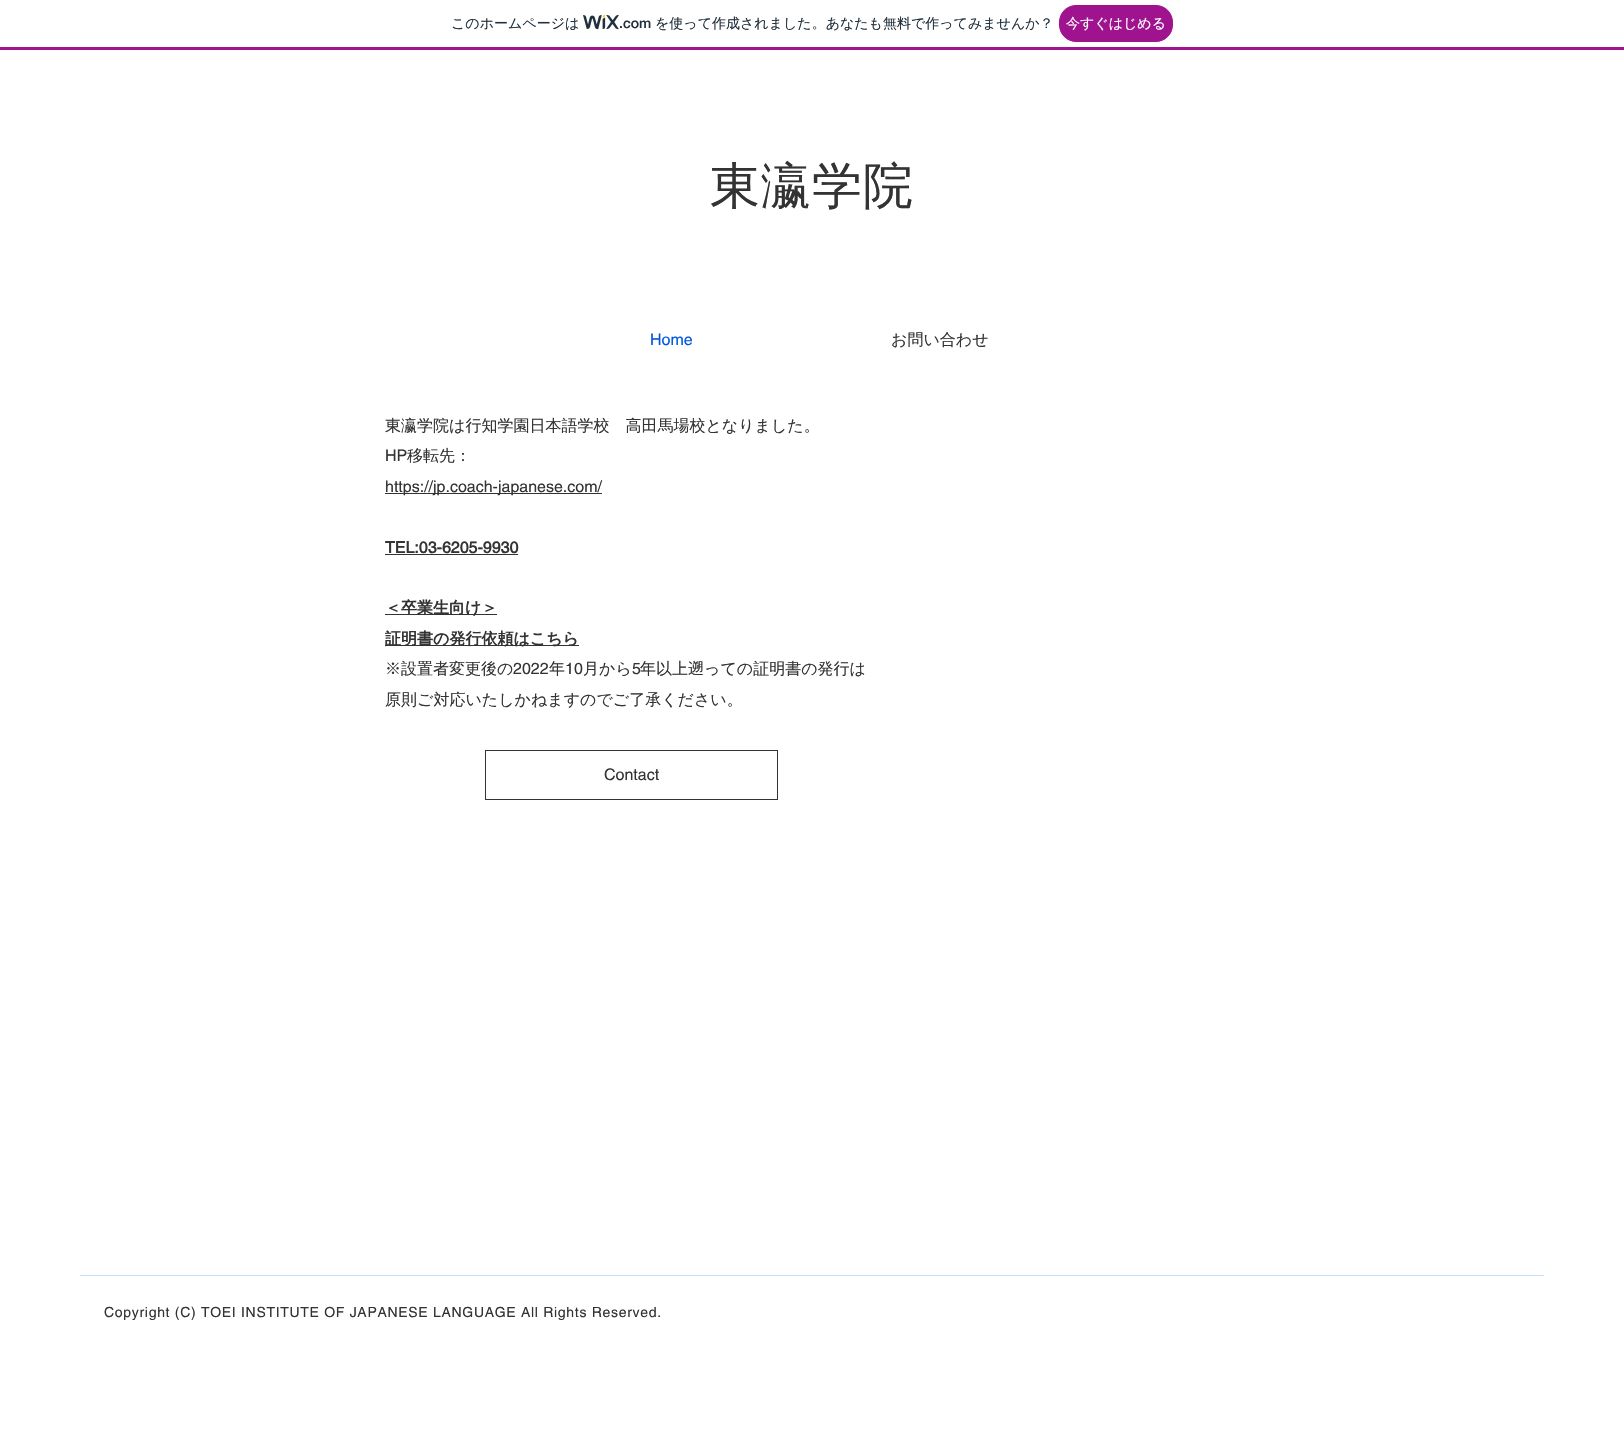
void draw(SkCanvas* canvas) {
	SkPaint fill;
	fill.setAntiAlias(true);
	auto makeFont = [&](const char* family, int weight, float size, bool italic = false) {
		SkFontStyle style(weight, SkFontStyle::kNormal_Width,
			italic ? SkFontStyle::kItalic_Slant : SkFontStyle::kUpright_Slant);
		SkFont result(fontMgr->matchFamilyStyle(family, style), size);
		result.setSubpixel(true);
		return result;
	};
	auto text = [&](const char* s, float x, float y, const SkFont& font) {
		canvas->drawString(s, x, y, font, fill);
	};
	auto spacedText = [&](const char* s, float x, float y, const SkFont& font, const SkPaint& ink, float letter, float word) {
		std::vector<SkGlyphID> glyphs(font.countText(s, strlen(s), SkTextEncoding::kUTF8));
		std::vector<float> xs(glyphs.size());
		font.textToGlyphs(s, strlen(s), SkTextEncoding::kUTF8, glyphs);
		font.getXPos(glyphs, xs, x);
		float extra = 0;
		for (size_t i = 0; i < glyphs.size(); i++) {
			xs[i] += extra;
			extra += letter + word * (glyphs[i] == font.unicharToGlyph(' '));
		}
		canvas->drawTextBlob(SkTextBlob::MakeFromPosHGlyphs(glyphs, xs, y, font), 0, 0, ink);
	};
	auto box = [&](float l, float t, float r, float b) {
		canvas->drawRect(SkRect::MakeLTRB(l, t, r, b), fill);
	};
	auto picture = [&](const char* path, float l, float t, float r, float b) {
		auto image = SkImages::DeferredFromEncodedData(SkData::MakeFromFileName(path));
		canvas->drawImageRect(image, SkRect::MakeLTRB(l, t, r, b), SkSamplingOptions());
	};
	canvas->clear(0xFFFFFFFF);
	fill.setColor(0xFFA0138E);
	box(0, 47, 1624, 50);
	picture("image0.png", 583, 15, 619, 30);
	canvas->drawRoundRect(SkRect::MakeLTRB(1059.5f, 5.5f, 1172.5f, 41.5f), 16.5f, 16.5f, fill);
	fill.setStyle(SkPaint::kStroke_Style);
	fill.setStrokeWidth(1);
	canvas->drawRoundRect(SkRect::MakeLTRB(1059.5f, 5.5f, 1172.5f, 41.5f), 16.5f, 16.5f, fill);
	fill.setStyle(SkPaint::kFill_Style);
	fill.setColor(0xFF333333);
	box(385, 493, 602, 494);
	box(385, 554, 518, 555);
	box(385, 614, 497, 615);
	box(385, 645, 579, 646);
	fill.setStyle(SkPaint::kStroke_Style);
	canvas->drawRect(SkRect::MakeLTRB(485.5f, 750.5f, 777.5f, 799.5f), fill);
	fill.setStyle(SkPaint::kFill_Style);
	fill.setColor(0xFFC8E0FE);
	box(80, 1275, 1544, 1276);
	auto font1 = makeFont("WenQuanYi Zen Hei", 500, 14);
	fill.setColor(0xFF20303C);
	text("このホームページは", 451, 28, font1);
	auto font2 = makeFont("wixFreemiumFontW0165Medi", 500, 14);
	text(".com", 619, 28, font2);
	text("を使って作成されました。あなたも無料で作ってみませんか？", 655, 28, font1);
	fill.setColor(0xFFFFFFFF);
	text("今すぐはじめる", 1066, 28, font1);
	auto font3 = makeFont("WenQuanYi Zen Hei", 500, 50);
	fill.setColor(0xFF333333);
	spacedText("東瀛学院", 710, 203, font3, fill, 1, 0);
	auto font4 = makeFont("helvetica", 400, 16);
	fill.setColor(0xFF0057E1);
	text("Home", 650, 345, font4);
	auto font5 = makeFont("WenQuanYi Zen Hei", 500, 16);
	fill.setColor(0xFF333333);
	text("お問い合わせ", 891, 345, font5);
	text("東瀛学院は行知学園日本語学校　高田馬場校となりました。", 385, 431, font5);
	text("HP", 385, 461, font4);
	text("移転先：", 407, 461, font5);
	text("https://jp.coach-japanese.com/", 385, 492, font4);
	auto font6 = makeFont("helvetica", 700, 16);
	text("TEL:03-6205-9930", 385, 553, font6);
	auto font7 = makeFont("WenQuanYi Zen Hei", 700, 16);
	text("＜卒業生向け＞", 385, 613, font7);
	text("証明書の発行依頼はこちら", 385, 644, font7);
	text("※設置者変更後の", 385, 674, font5);
	text("2022", 513, 674, font4);
	text("年", 549, 674, font5);
	text("10", 565, 674, font4);
	text("月から", 583, 674, font5);
	text("5", 632, 674, font4);
	text("年以上遡っての証明書の発行は", 640, 674, font5);
	text("原則ご対応いたしかねますのでご了承ください。", 385, 705, font5);
	text("Contact", 604, 780, font4);
	auto font8 = makeFont("helvetica", 400, 14);
	spacedText("Copyright (C) TOEI INSTITUTE OF JAPANESE LANGUAGE All Rights Reserved.", 104, 1317, font8, fill, 0.7f, 0);
}
